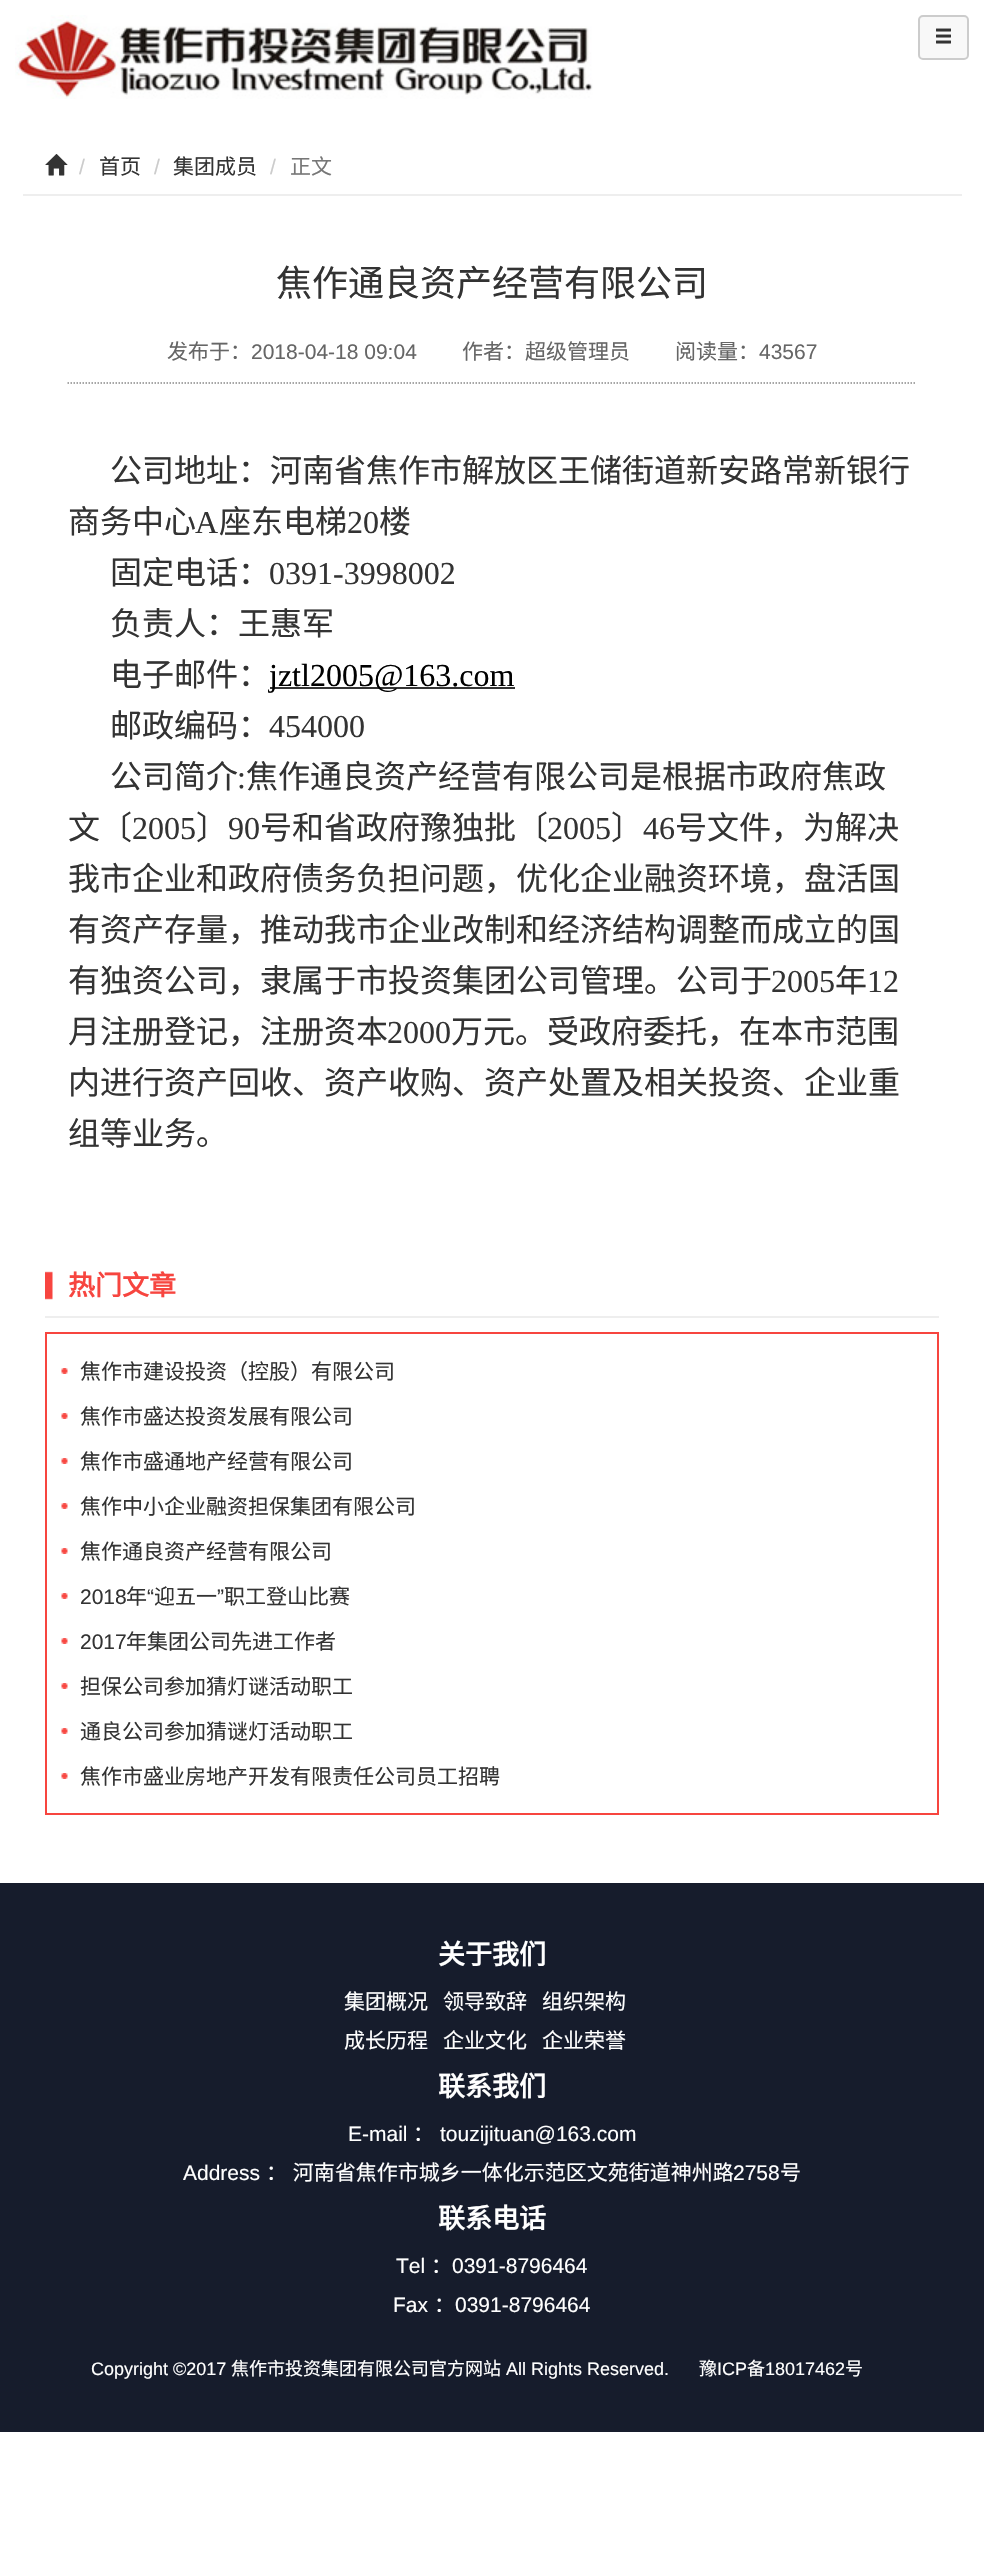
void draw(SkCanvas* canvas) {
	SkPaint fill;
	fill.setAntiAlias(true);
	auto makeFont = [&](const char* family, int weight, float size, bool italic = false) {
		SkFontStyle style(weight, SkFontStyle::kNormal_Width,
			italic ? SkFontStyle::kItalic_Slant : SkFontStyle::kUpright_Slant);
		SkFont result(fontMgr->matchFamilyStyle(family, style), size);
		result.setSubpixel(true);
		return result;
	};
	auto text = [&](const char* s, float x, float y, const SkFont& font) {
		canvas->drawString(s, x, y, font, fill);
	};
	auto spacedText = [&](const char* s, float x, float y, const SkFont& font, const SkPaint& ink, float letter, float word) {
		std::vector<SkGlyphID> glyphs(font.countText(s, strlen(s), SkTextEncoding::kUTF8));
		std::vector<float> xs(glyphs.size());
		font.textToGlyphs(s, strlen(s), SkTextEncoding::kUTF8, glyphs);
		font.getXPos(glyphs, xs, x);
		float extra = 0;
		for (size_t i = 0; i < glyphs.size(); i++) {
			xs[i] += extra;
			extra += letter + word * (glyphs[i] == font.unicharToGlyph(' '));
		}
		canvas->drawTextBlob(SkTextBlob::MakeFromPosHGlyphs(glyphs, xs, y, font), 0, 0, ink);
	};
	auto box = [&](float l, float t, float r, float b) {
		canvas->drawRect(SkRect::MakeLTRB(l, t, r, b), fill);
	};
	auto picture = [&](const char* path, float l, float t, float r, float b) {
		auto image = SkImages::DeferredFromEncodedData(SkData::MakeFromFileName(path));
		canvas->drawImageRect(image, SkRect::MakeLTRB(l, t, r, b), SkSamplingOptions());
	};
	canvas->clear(0xFFFFFFFF);
	picture("image0.png", 15, 15, 593, 99);
	fill.setColor(0xFFF8F8F8);
	canvas->drawRoundRect(SkRect::MakeLTRB(919, 16, 968, 59), 4, 4, fill);
	fill.setStyle(SkPaint::kStroke_Style);
	fill.setStrokeWidth(2);
	fill.setColor(0xFFCCCCCC);
	canvas->drawRoundRect(SkRect::MakeLTRB(919, 16, 968, 59), 4, 4, fill);
	picture("image1.png", 936, 28, 951, 44);
	fill.setStyle(SkPaint::kFill_Style);
	fill.setColor(0xFFEEEEEE);
	box(23, 194, 962, 196);
	picture("image2.png", 45, 154, 68, 176);
	fill.setStyle(SkPaint::kStroke_Style);
	fill.setStrokeWidth(1.5f);
	fill.setColor(0xFF898989);
	fill.setPathEffect(SkDashPathEffect::Make({{1.5f, 1.5f}}, 0));
	canvas->drawPath(SkPathBuilder().moveTo(67.5f, 383).lineTo(916.5f, 383).detach(), fill);
	fill.setPathEffect(nullptr);
	fill.setStyle(SkPaint::kFill_Style);
	fill.setColor(0xFF333333);
	box(270, 687, 515, 689);
	picture("image3.png", 45, 1271, 53, 1300);
	fill.setColor(0xFFEEEEEE);
	box(45, 1316, 939, 1318);
	fill.setStyle(SkPaint::kStroke_Style);
	fill.setStrokeWidth(2);
	fill.setColor(0xFFF7453F);
	canvas->drawRect(SkRect::MakeLTRB(46, 1333, 938, 1814), fill);
	picture("image4.png", 61, 1368, 68, 1374);
	picture("image4.png", 61, 1413, 68, 1419);
	picture("image4.png", 61, 1458, 68, 1464);
	picture("image4.png", 61, 1503, 68, 1509);
	picture("image4.png", 61, 1548, 68, 1554);
	picture("image4.png", 61, 1593, 68, 1599);
	picture("image4.png", 61, 1638, 68, 1644);
	picture("image4.png", 61, 1683, 68, 1689);
	picture("image4.png", 61, 1728, 68, 1734);
	picture("image4.png", 61, 1773, 68, 1779);
	fill.setStyle(SkPaint::kFill_Style);
	fill.setColor(0xFF161C2C);
	box(0, 1883, 984, 2432);
	auto font1 = makeFont("Liberation Sans", 400, 21);
	fill.setColor(0xFFCCCCCC);
	text("/", 79, 174, font1);
	auto font2 = makeFont("Noto Sans CJK SC", 400, 21);
	fill.setColor(0xFF333333);
	text("首页", 99, 174, font2);
	fill.setColor(0xFFCCCCCC);
	text("/", 154, 174, font1);
	fill.setColor(0xFF333333);
	text("集团成员", 173, 174, font2);
	fill.setColor(0xFFCCCCCC);
	text("/", 270, 174, font1);
	fill.setColor(0xFF777777);
	text("正文", 290, 174, font2);
	auto font3 = makeFont("Noto Sans CJK SC", 400, 36);
	fill.setColor(0xFF333333);
	text("焦作通良资产经营有限公司", 276, 296, font3);
	fill.setColor(0xFF666666);
	text("发布于：", 167, 359, font2);
	text("2018-04-18 09:04", 251, 359, font1);
	text("作者：超级管理员", 462, 359, font2);
	text("阅读量：", 675, 359, font2);
	text("43567", 759, 359, font1);
	auto font4 = makeFont("Noto Sans CJK SC", 400, 32);
	fill.setColor(0xFF333333);
	text("公司地址：河南省焦作市解放区王储街道新安路常新银行", 110, 482, font4);
	text("商务中心", 68, 533, font4);
	auto font5 = makeFont("Liberation Serif", 400, 32);
	text("A", 195, 533, font5);
	text("座东电梯", 219, 533, font4);
	text("20", 347, 533, font5);
	text("楼", 379, 533, font4);
	text("固定电话：", 110, 584, font4);
	text("0391-3998002", 269, 584, font5);
	text("负责人：王惠军", 110, 635, font4);
	text("电子邮件：", 110, 686, font4);
	fill.setColor(0xFF000000);
	text("jztl2005@163.com", 269, 686, font5);
	fill.setColor(0xFF333333);
	text("邮政编码：", 110, 737, font4);
	text("454000", 269, 737, font5);
	text("公司简介", 110, 788, font4);
	text(":", 237, 788, font5);
	text("焦作通良资产经营有限公司是根据市政府焦政", 246, 788, font4);
	text("文〔", 68, 839, font4);
	text("2005", 132, 839, font5);
	text("〕", 196, 839, font4);
	text("90", 228, 839, font5);
	text("号和省政府豫独批〔", 260, 839, font4);
	text("2005", 547, 839, font5);
	text("〕", 611, 839, font4);
	text("46", 643, 839, font5);
	text("号文件，为解决", 675, 839, font4);
	text("我市企业和政府债务负担问题，优化企业融资环境，盘活国", 68, 890, font4);
	text("有资产存量，推动我市企业改制和经济结构调整而成立的国", 68, 941, font4);
	text("有独资公司，隶属于市投资集团公司管理。公司于", 68, 992, font4);
	text("2005", 771, 992, font5);
	text("年", 835, 992, font4);
	text("12", 867, 992, font5);
	text("月注册登记，注册资本", 68, 1043, font4);
	text("2000", 387, 1043, font5);
	text("万元。受政府委托，在本市范围", 451, 1043, font4);
	text("内进行资产回收、资产收购、资产处置及相关投资、企业重", 68, 1094, font4);
	text("组等业务。", 68, 1145, font4);
	auto font6 = makeFont("Noto Sans CJK SC", 700, 27);
	fill.setColor(0xFFF7453F);
	text("热门文章", 68, 1295, font6);
	fill.setColor(0xFF333333);
	text("焦作市建设投资（控股）有限公司", 80, 1379, font2);
	text("焦作市盛达投资发展有限公司", 80, 1424, font2);
	text("焦作市盛通地产经营有限公司", 80, 1469, font2);
	text("焦作中小企业融资担保集团有限公司", 80, 1514, font2);
	text("焦作通良资产经营有限公司", 80, 1559, font2);
	text("2018", 80, 1604, font1);
	text("年", 126, 1604, font2);
	text("“", 147, 1604, font1);
	text("迎五一", 154, 1604, font2);
	text("”", 217, 1604, font1);
	text("职工登山比赛", 224, 1604, font2);
	text("2017", 80, 1649, font1);
	text("年集团公司先进工作者", 126, 1649, font2);
	text("担保公司参加猜灯谜活动职工", 80, 1694, font2);
	text("通良公司参加猜谜灯活动职工", 80, 1739, font2);
	text("焦作市盛业房地产开发有限责任公司员工招聘", 80, 1784, font2);
	fill.setColor(0xFFFFFFFF);
	text("关于我们", 438, 1964, font6);
	text("集团概况", 344, 2009, font2);
	text("领导致辞", 443, 2009, font2);
	text("组织架构", 542, 2009, font2);
	text("成长历程", 344, 2048, font2);
	text("企业文化", 443, 2048, font2);
	text("企业荣誉", 542, 2048, font2);
	text("联系我们", 438, 2096, font6);
	text("E-mail", 348, 2141, font1);
	text("：", 413, 2141, font2);
	text("touzijituan@163.com", 440, 2141, font1);
	text("Address", 183, 2180, font1);
	spacedText("： 河南省焦作市城乡一体化示范区文苑街道神州路", 266, 2180, font2, fill, 0, 1);
	text("2758", 733, 2180, font1);
	text("号", 780, 2180, font2);
	text("联系电话", 438, 2228, font6);
	text("Tel", 396, 2273, font1);
	text("：", 431, 2273, font2);
	text("0391-8796464", 452, 2273, font1);
	text("Fax", 393, 2312, font1);
	text("：", 434, 2312, font2);
	text("0391-8796464", 455, 2312, font1);
	auto font7 = makeFont("Liberation Sans", 400, 18);
	text("Copyright ©2017", 91, 2375, font7);
	auto font8 = makeFont("Noto Sans CJK SC", 400, 18);
	text("焦作市投资集团有限公司官方网站", 231, 2375, font8);
	text("All Rights Reserved.", 506, 2375, font7);
	text("豫", 699, 2375, font8);
	text("ICP", 717, 2375, font7);
	text("备", 747, 2375, font8);
	text("18017462", 765, 2375, font7);
	text("号", 845, 2375, font8);
}
